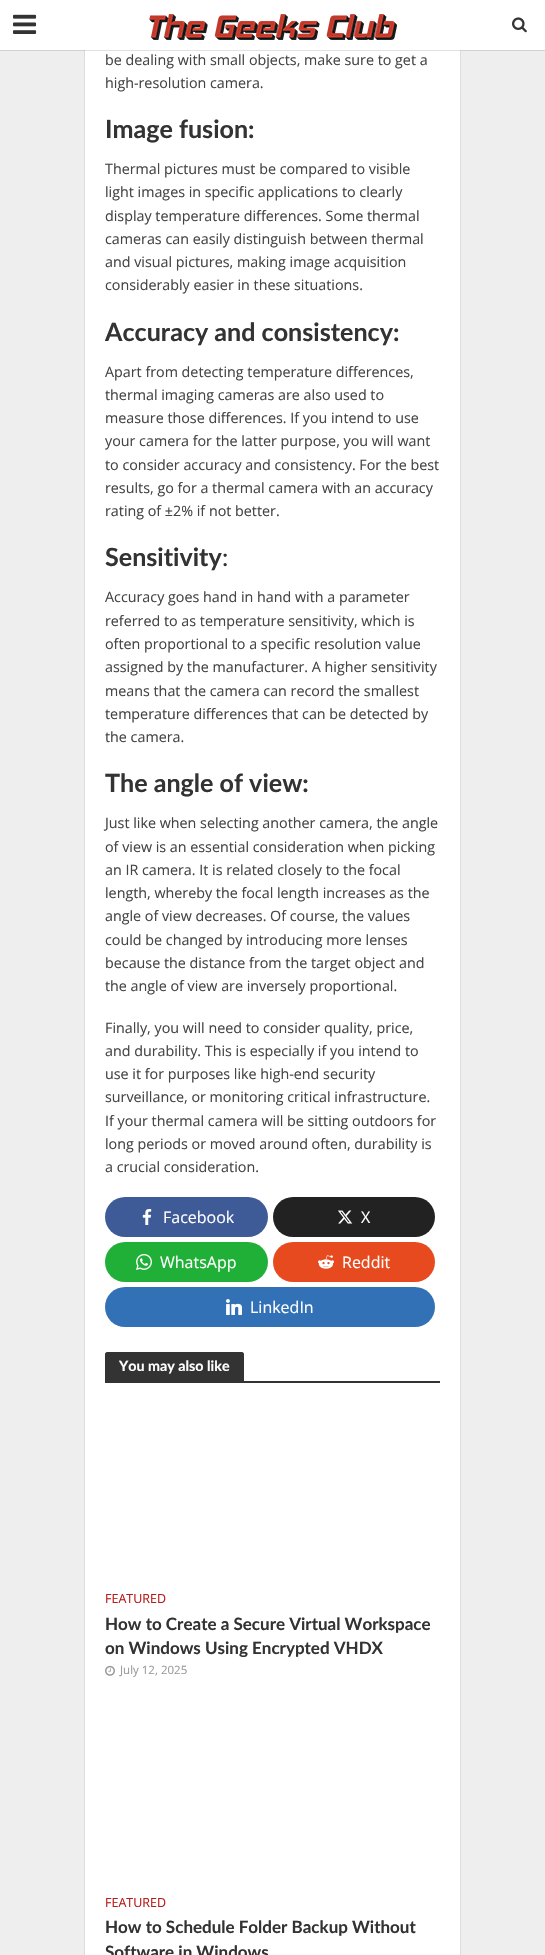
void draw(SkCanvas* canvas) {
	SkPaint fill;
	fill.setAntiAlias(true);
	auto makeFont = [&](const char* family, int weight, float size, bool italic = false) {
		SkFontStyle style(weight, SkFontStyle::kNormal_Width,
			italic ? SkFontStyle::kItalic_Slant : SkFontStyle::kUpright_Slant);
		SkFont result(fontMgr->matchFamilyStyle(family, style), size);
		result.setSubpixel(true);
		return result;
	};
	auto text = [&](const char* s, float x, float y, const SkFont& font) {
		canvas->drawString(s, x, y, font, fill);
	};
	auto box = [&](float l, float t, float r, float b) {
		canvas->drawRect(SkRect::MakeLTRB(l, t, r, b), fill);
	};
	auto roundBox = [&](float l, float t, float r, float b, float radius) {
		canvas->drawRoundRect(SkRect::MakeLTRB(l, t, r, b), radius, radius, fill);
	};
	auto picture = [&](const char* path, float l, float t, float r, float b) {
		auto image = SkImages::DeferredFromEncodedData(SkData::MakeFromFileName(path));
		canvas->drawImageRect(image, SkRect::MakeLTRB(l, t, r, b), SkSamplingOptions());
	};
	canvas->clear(0xFFEEEEEE);
	fill.setStyle(SkPaint::kStroke_Style);
	fill.setStrokeWidth(1);
	fill.setColor(0xFFDDDDDD);
	canvas->drawRect(SkRect::MakeLTRB(84.5f, -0.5f, 460.5f, 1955.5f), fill);
	fill.setStyle(SkPaint::kFill_Style);
	fill.setColor(0xFFFFFFFF);
	box(85, 50, 460, 1955);
	fill.setColor(0x26333333);
	canvas->drawPath(SkPathBuilder().moveTo(0, -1).lineTo(0, 0).lineTo(545, 0).lineTo(545, 50).lineTo(0, 50).lineTo(0, 51).lineTo(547, 51).lineTo(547, -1).close().detach(), fill);
	fill.setColor(0xFFFFFFFF);
	box(0, 0, 545, 50);
	picture("image0.png", 13, 14, 37, 34);
	picture("image1.png", 149, 14, 397, 40);
	picture("image2.png", 512, 17, 527, 33);
	fill.setColor(0xFF3E5B98);
	roundBox(105, 1197, 268, 1237, 20);
	picture("image3.png", 142, 1209, 152, 1225);
	fill.setColor(0xFF222222);
	roundBox(273, 1197, 435, 1237, 20);
	picture("image4.png", 338, 1210, 353, 1224);
	fill.setColor(0xFF20B038);
	roundBox(105, 1242, 268, 1282, 20);
	picture("image5.png", 136, 1254, 152, 1270);
	fill.setColor(0xFFE74A1E);
	roundBox(273, 1242, 435, 1282, 20);
	picture("image6.png", 318, 1255, 334, 1269);
	fill.setColor(0xFF3371B7);
	roundBox(105, 1287, 435, 1327, 20);
	picture("image7.png", 226, 1299, 242, 1315);
	fill.setColor(0xFF333333);
	canvas->drawPath(SkPathBuilder().moveTo(107, 1352).lineTo(242, 1352).cubicTo(243, 1352, 244, 1353, 244, 1354).lineTo(244, 1381).lineTo(105, 1381).lineTo(105, 1354).cubicTo(105, 1353, 106, 1352, 107, 1352).close().detach(), fill);
	box(105, 1381, 440, 1383);
	picture("image8.png", 105, 1665, 115, 1676);
	auto font1 = makeFont("Open Sans", 400, 14.3f);
	fill.setColor(0xFF444444);
	text("be dealing with small objects, make sure to get a", 105, 65, font1);
	text("high-resolution camera.", 105, 88, font1);
	auto font2 = makeFont("Lato", 700, 25.1f);
	fill.setColor(0xFF333333);
	text("Image fusion:", 105, 138, font2);
	fill.setColor(0xFF444444);
	text("Thermal pictures must be compared to visible", 105, 174, font1);
	text("light images in specific applications to clearly", 105, 197, font1);
	text("display temperature differences. Some thermal", 105, 221, font1);
	text("cameras can easily distinguish between thermal", 105, 244, font1);
	text("and visual pictures, making image acquisition", 105, 267, font1);
	text("considerably easier in these situations.", 105, 290, font1);
	fill.setColor(0xFF333333);
	text("Accuracy and consistency:", 105, 341, font2);
	fill.setColor(0xFF444444);
	text("Apart from detecting temperature differences,", 105, 377, font1);
	text("thermal imaging cameras are also used to", 105, 400, font1);
	text("measure those differences. If you intend to use", 105, 423, font1);
	text("your camera for the latter purpose, you will want", 105, 446, font1);
	text("to consider accuracy and consistency. For the best", 105, 470, font1);
	text("results, go for a thermal camera with an accuracy", 105, 493, font1);
	text("rating of ±2% if not better.", 105, 516, font1);
	fill.setColor(0xFF333333);
	text("Sensitivity", 105, 566, font2);
	auto font3 = makeFont("Lato", 400, 25.1f);
	text(":", 222, 566, font3);
	fill.setColor(0xFF444444);
	text("Accuracy goes hand in hand with a parameter", 105, 602, font1);
	text("referred to as temperature sensitivity, which is", 105, 626, font1);
	text("often proportional to a specific resolution value", 105, 649, font1);
	text("assigned by the manufacturer. A higher sensitivity", 105, 672, font1);
	text("means that the camera can record the smallest", 105, 696, font1);
	text("temperature differences that can be detected by", 105, 719, font1);
	text("the camera.", 105, 742, font1);
	fill.setColor(0xFF333333);
	text("The angle of view:", 105, 792, font2);
	fill.setColor(0xFF444444);
	text("Just like when selecting another camera, the angle", 105, 828, font1);
	text("of view is an essential consideration when picking", 105, 852, font1);
	text("an IR camera. It is related closely to the focal", 105, 875, font1);
	text("length, whereby the focal length increases as the", 105, 898, font1);
	text("angle of view decreases. Of course, the values", 105, 921, font1);
	text("could be changed by introducing more lenses", 105, 945, font1);
	text("because the distance from the target object and", 105, 968, font1);
	text("the angle of view are inversely proportional.", 105, 991, font1);
	text("Finally, you will need to consider quality, price,", 105, 1033, font1);
	text("and durability. This is especially if you intend to", 105, 1056, font1);
	text("use it for purposes like high-end security", 105, 1079, font1);
	text("surveillance, or monitoring critical infrastructure.", 105, 1102, font1);
	text("If your thermal camera will be sitting outdoors for", 105, 1126, font1);
	text("long periods or moved around often, durability is", 105, 1149, font1);
	text("a crucial consideration.", 105, 1172, font1);
	auto font4 = makeFont("Open Sans", 400, 16);
	fill.setColor(0xFFFFFFFF);
	text("Facebook", 163, 1223, font4);
	text("X", 361, 1223, font4);
	text("WhatsApp", 160, 1268, font4);
	text("Reddit", 342, 1268, font4);
	text("LinkedIn", 250, 1313, font4);
	auto font5 = makeFont("Lato", 700, 14.3f);
	text("You may also like", 119, 1371, font5);
	auto font6 = makeFont("Open Sans", 400, 12.5f);
	fill.setColor(0xFFB71C1C);
	text("FEATURED", 105, 1603, font6);
	auto font7 = makeFont("Lato", 700, 17);
	fill.setColor(0xFF333333);
	text("How to Create a Secure Virtual Workspace", 105, 1630, font7);
	text("on Windows Using Encrypted VHDX", 105, 1654, font7);
	auto font8 = makeFont("Open Sans", 400, 11.5f);
	fill.setColor(0xFF999999);
	text("July 12, 2025", 120, 1674, font8);
	fill.setColor(0xFFB71C1C);
	text("FEATURED", 105, 1907, font6);
	fill.setColor(0xFF333333);
	text("How to Schedule Folder Backup Without", 105, 1933, font7);
	text("Software in Windows", 105, 1958, font7);
}
